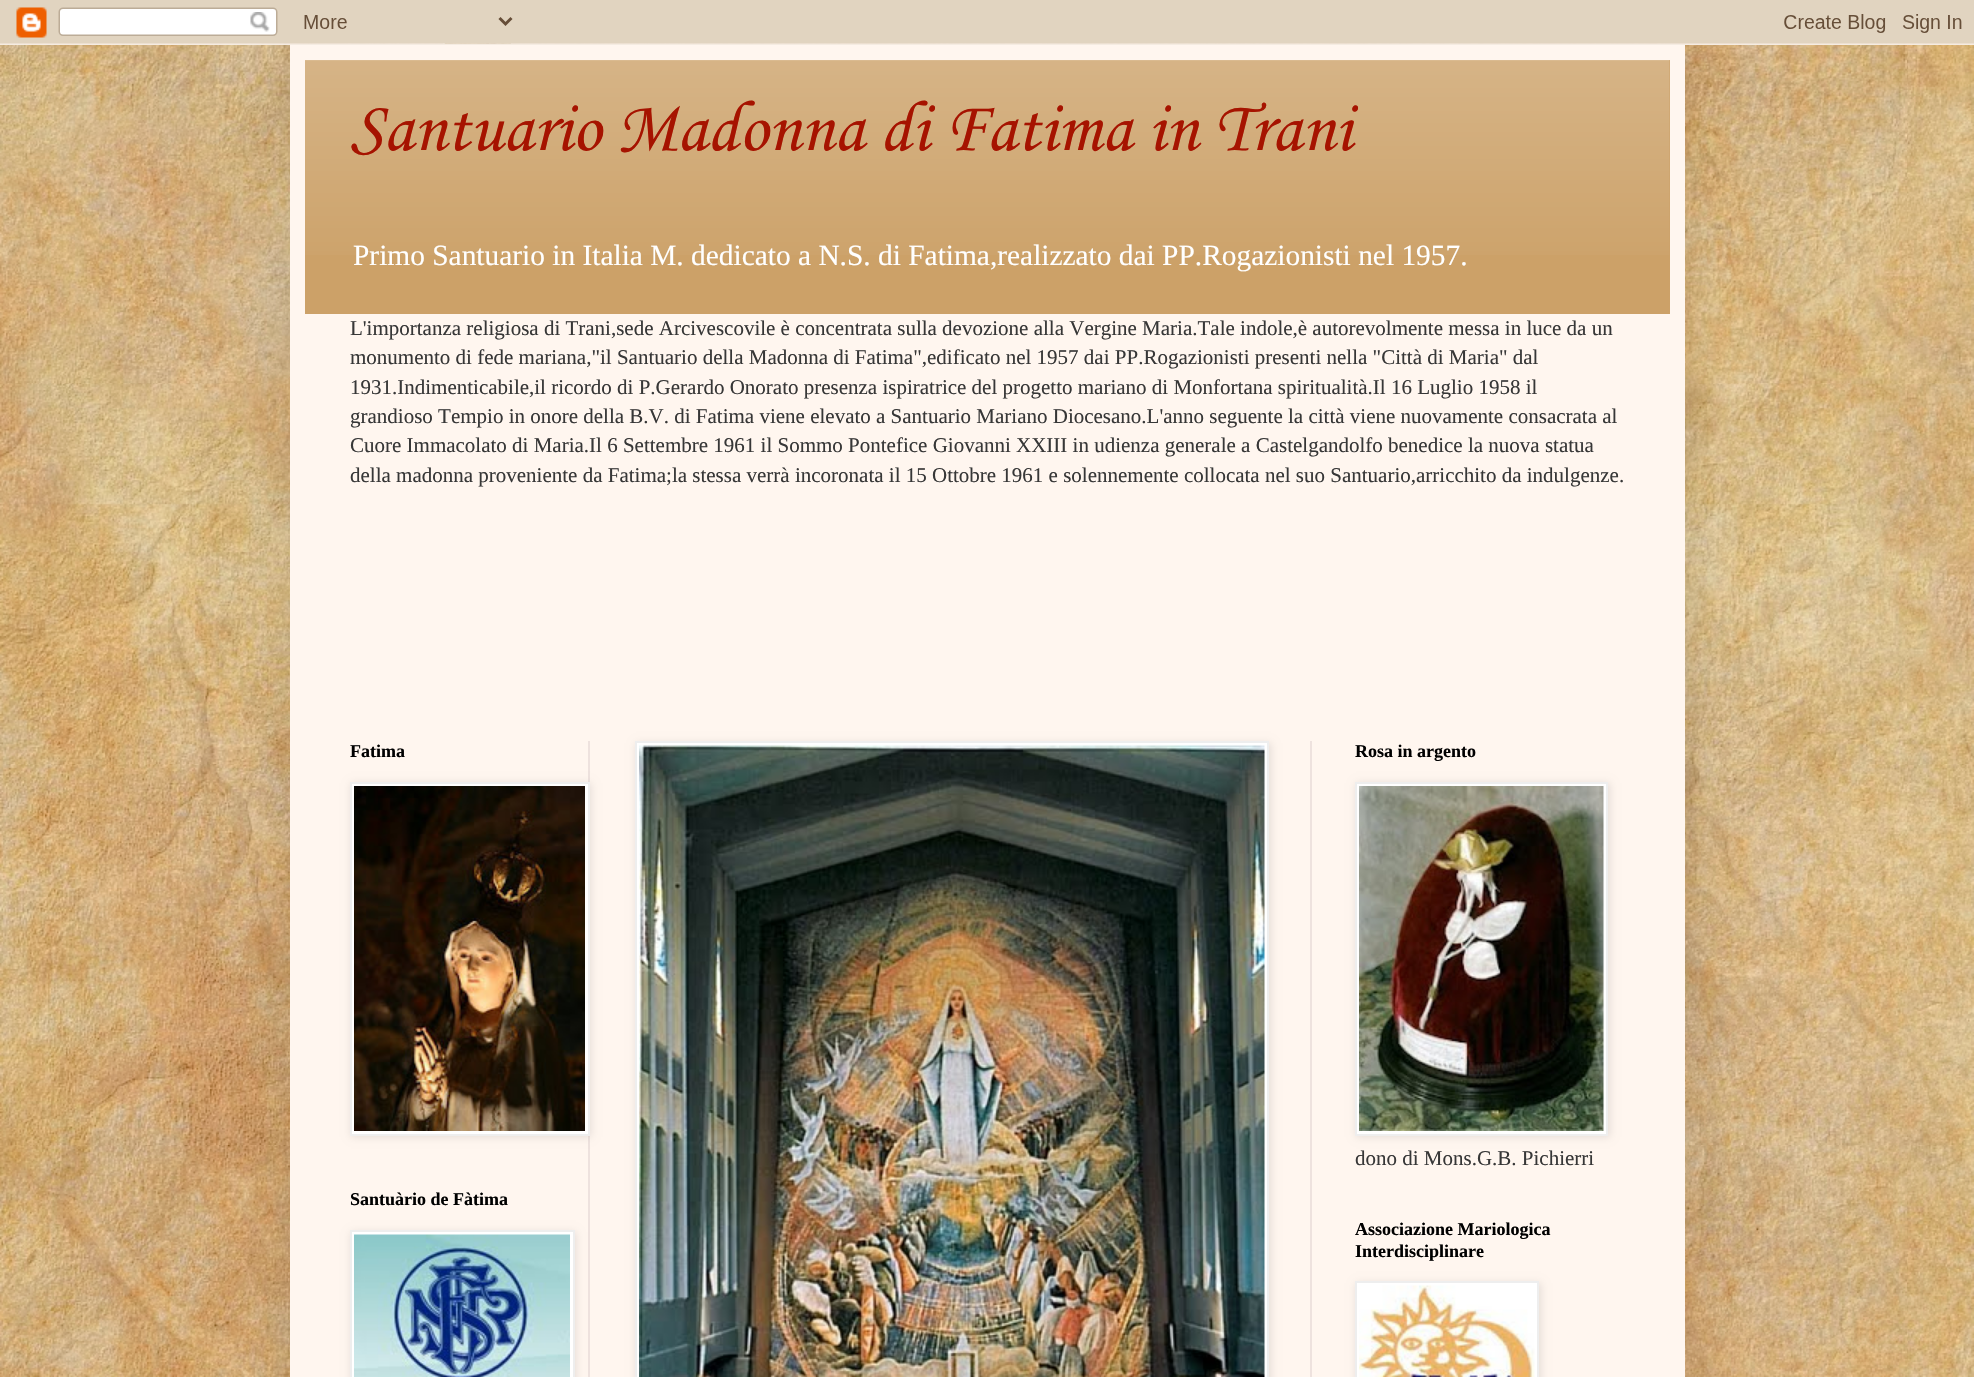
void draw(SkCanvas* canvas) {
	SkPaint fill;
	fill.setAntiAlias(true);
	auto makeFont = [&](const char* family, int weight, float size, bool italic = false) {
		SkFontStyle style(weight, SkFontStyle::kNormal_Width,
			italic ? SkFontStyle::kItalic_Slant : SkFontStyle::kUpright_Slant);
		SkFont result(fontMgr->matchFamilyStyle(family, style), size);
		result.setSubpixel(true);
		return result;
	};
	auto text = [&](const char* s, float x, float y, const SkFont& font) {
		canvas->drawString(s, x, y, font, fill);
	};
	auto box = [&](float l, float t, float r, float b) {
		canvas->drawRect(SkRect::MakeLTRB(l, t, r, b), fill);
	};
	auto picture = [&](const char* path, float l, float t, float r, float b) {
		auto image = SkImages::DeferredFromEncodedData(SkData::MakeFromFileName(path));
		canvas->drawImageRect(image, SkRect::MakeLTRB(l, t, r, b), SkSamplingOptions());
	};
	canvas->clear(0xFFFFFFFF);
	picture("image0.png", 0, 43, 1974, 1377);
	fill.setColor(0x26000000);
	fill.setMaskFilter(SkMaskFilter::MakeBlur(kNormal_SkBlurStyle, 30));
	canvas->drawRect(SkRect::MakeLTRB(290, 45, 1685, 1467), fill);
	fill.setMaskFilter(nullptr);
	picture("image1.png", 0, 0, 1974, 45);
	fill.setColor(0xFFFFF6EF);
	box(290, 45, 1685, 1377);
	fill.setColor(0xFFCCA168);
	box(305, 60, 1670, 314);
	picture("image2.png", 305, 60, 1670, 255);
	fill.setColor(0xFFEEE2DE);
	box(588, 741, 590, 1377);
	box(1310, 741, 1312, 1377);
	fill.setColor(0x1A000000);
	fill.setMaskFilter(SkMaskFilter::MakeBlur(kNormal_SkBlurStyle, 4));
	canvas->drawRect(SkRect::MakeLTRB(351, 783, 591, 1137), fill);
	fill.setMaskFilter(nullptr);
	fill.setColor(0xFFFFFFFF);
	canvas->drawRect(SkRect::MakeLTRB(351, 783, 589, 1135), fill);
	fill.setStyle(SkPaint::kStroke_Style);
	fill.setStrokeWidth(2);
	fill.setColor(0xFFEEEEEE);
	canvas->drawRect(SkRect::MakeLTRB(351, 783, 589, 1135), fill);
	picture("image3.png", 354, 786, 585, 1131);
	fill.setStyle(SkPaint::kFill_Style);
	fill.setColor(0x1A000000);
	fill.setMaskFilter(SkMaskFilter::MakeBlur(kNormal_SkBlurStyle, 4));
	canvas->drawRect(SkRect::MakeLTRB(351, 1232, 576, 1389), fill);
	fill.setMaskFilter(nullptr);
	fill.setColor(0xFFFFFFFF);
	canvas->drawRect(SkRect::MakeLTRB(351, 1231, 574, 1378), fill);
	fill.setStyle(SkPaint::kStroke_Style);
	fill.setColor(0xFFEEEEEE);
	canvas->drawRect(SkRect::MakeLTRB(351, 1231, 574, 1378), fill);
	picture("image4.png", 354, 1234, 570, 1377);
	fill.setStyle(SkPaint::kFill_Style);
	fill.setColor(0x1A000000);
	fill.setMaskFilter(SkMaskFilter::MakeBlur(kNormal_SkBlurStyle, 4));
	canvas->drawRect(SkRect::MakeLTRB(636, 743, 1271, 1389), fill);
	fill.setMaskFilter(nullptr);
	fill.setColor(0xFFFFFFFF);
	canvas->drawRect(SkRect::MakeLTRB(636, 742, 1268, 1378), fill);
	fill.setStyle(SkPaint::kStroke_Style);
	fill.setColor(0xFFEEEEEE);
	canvas->drawRect(SkRect::MakeLTRB(636, 742, 1268, 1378), fill);
	picture("image5.png", 639, 745, 1265, 1377);
	fill.setStyle(SkPaint::kFill_Style);
	fill.setColor(0x1A000000);
	fill.setMaskFilter(SkMaskFilter::MakeBlur(kNormal_SkBlurStyle, 4));
	canvas->drawRect(SkRect::MakeLTRB(1356, 783, 1610, 1137), fill);
	fill.setMaskFilter(nullptr);
	fill.setColor(0xFFFFFFFF);
	canvas->drawRect(SkRect::MakeLTRB(1356, 783, 1607, 1135), fill);
	fill.setStyle(SkPaint::kStroke_Style);
	fill.setColor(0xFFEEEEEE);
	canvas->drawRect(SkRect::MakeLTRB(1356, 783, 1607, 1135), fill);
	picture("image6.png", 1359, 786, 1604, 1131);
	fill.setStyle(SkPaint::kFill_Style);
	fill.setColor(0x1A000000);
	fill.setMaskFilter(SkMaskFilter::MakeBlur(kNormal_SkBlurStyle, 4));
	canvas->drawRect(SkRect::MakeLTRB(1356, 1283, 1541, 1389), fill);
	fill.setMaskFilter(nullptr);
	fill.setColor(0xFFFFFFFF);
	canvas->drawRect(SkRect::MakeLTRB(1356, 1282, 1538, 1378), fill);
	fill.setStyle(SkPaint::kStroke_Style);
	fill.setColor(0xFFEEEEEE);
	canvas->drawRect(SkRect::MakeLTRB(1356, 1282, 1538, 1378), fill);
	picture("image7.png", 1359, 1285, 1535, 1377);
	auto font1 = makeFont("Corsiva", 400, 72);
	fill.setStyle(SkPaint::kFill_Style);
	fill.setColor(0xFFA61300);
	text("Santuario Madonna di Fatima in Trani", 350, 150, font1);
	auto font2 = makeFont("Liberation Serif", 400, 29.4f);
	fill.setColor(0xFFFFFFFF);
	text("Primo Santuario in Italia M. dedicato a N.S. di Fatima,realizzato dai PP.Rogazionisti nel 1957.", 353, 265, font2);
	auto font3 = makeFont("Liberation Serif", 400, 21);
	fill.setColor(0xFF373737);
	text("L'importanza religiosa di Trani,sede Arcivescovile è concentrata sulla devozione alla Vergine Maria.Tale indole,è autorevolmente messa in luce da un", 350, 335, font3);
	text("monumento di fede mariana,\"il Santuario della Madonna di Fatima\",edificato nel 1957 dai PP.Rogazionisti presenti nella \"Città di Maria\" dal", 350, 364, font3);
	text("1931.Indimenticabile,il ricordo di P.Gerardo Onorato presenza ispiratrice del progetto mariano di Monfortana spiritualità.Il 16 Luglio 1958 il", 350, 394, font3);
	text("grandioso Tempio in onore della B.V. di Fatima viene elevato a Santuario Mariano Diocesano.L'anno seguente la città viene nuovamente consacrata al", 350, 423, font3);
	text("Cuore Immacolato di Maria.Il 6 Settembre 1961 il Sommo Pontefice Giovanni XXIII in udienza generale a Castelgandolfo benedice la nuova statua", 350, 452, font3);
	text("della madonna proveniente da Fatima;la stessa verrà incoronata il 15 Ottobre 1961 e solennemente collocata nel suo Santuario,arricchito da indulgenze.", 350, 482, font3);
	auto font4 = makeFont("Liberation Serif", 700, 18);
	fill.setColor(0xFF000000);
	text("Fatima", 350, 757, font4);
	text("Santuàrio de Fàtima", 350, 1205, font4);
	text("Rosa in argento", 1355, 757, font4);
	fill.setColor(0xFF373737);
	text("dono di Mons.G.B. Pichierri", 1355, 1165, font3);
	fill.setColor(0xFF000000);
	text("Associazione Mariologica", 1355, 1235, font4);
	text("Interdisciplinare", 1355, 1257, font4);
}
